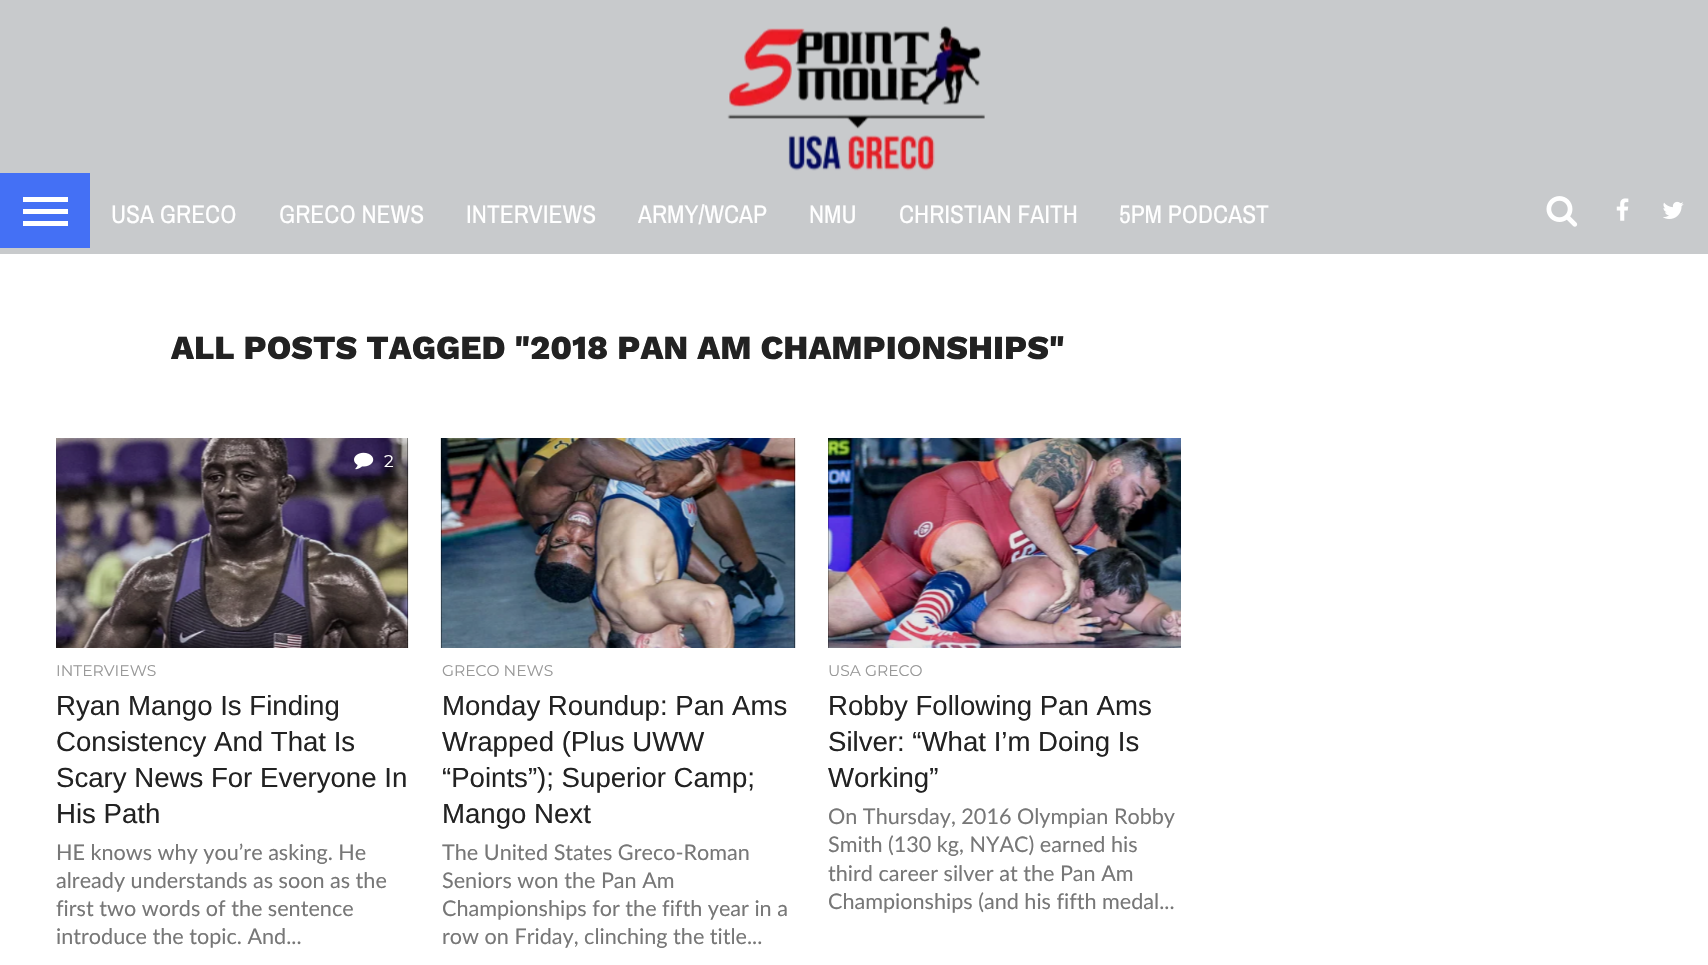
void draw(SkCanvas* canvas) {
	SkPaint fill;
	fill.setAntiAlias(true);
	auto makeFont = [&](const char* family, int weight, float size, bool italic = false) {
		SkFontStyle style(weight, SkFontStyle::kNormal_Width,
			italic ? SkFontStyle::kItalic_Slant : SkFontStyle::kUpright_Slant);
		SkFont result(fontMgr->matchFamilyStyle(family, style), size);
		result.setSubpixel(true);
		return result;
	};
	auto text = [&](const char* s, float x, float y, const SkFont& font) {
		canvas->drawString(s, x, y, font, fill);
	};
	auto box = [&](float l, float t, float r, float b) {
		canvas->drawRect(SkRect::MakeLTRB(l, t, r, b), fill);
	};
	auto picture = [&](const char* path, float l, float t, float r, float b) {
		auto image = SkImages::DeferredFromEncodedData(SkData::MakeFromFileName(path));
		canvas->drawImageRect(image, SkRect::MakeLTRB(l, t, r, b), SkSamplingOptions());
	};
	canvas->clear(0xFFFFFFFF);
	fill.setColor(0xFFC8CACC);
	box(0, 0, 1708, 254);
	picture("image0.png", 727, 26, 985, 171);
	fill.setColor(0xFF4470F5);
	box(0, 173, 90, 248);
	fill.setColor(0xFFFFFFFF);
	box(23, 197, 68, 202);
	box(23, 209, 68, 214);
	box(23, 221, 68, 226);
	picture("image1.png", 1546, 196, 1578, 227);
	picture("image2.png", 1616, 198, 1629, 221);
	picture("image3.png", 1663, 201, 1684, 219);
	fill.setColor(0xFF000000);
	box(56, 438, 408, 648);
	picture("image4.png", 56, 438, 409, 648);
	picture("image5.png", 354, 452, 374, 470);
	box(441, 438, 795, 648);
	picture("image6.png", 440, 438, 796, 648);
	box(828, 438, 1181, 648);
	picture("image7.png", 828, 438, 1181, 648);
	auto font1 = makeFont("Archivo Narrow", 400, 25.5f);
	fill.setColor(0xFFFFFFFF);
	text("USA GRECO", 111, 223, font1);
	text("GRECO NEWS", 279, 223, font1);
	text("INTERVIEWS", 466, 223, font1);
	text("ARMY/WCAP", 638, 223, font1);
	text("NMU", 809, 223, font1);
	text("CHRISTIAN FAITH", 899, 223, font1);
	text("5PM PODCAST", 1119, 223, font1);
	auto font2 = makeFont("Work Sans", 800, 33.6f);
	fill.setColor(0xFF222222);
	text("ALL POSTS TAGGED \"2018 PAN AM CHAMPIONSHIPS\"", 171, 359, font2);
	auto font3 = makeFont("Montserrat", 400, 17);
	fill.setColor(0xFFFFFFFF);
	text("2", 384, 467, font3);
	auto font4 = makeFont("Montserrat", 400, 15.5f);
	fill.setColor(0xFF999999);
	text("INTERVIEWS", 56, 676, font4);
	auto font5 = makeFont("Liberation Sans", 400, 27.6f);
	fill.setColor(0xFF222222);
	text("Ryan Mango Is Finding", 56, 715, font5);
	text("Consistency And That Is", 56, 751, font5);
	text("Scary News For Everyone In", 56, 787, font5);
	text("His Path", 56, 823, font5);
	auto font6 = makeFont("Lato", 400, 21.6f);
	fill.setColor(0xFF777777);
	text("HE knows why you’re asking. He", 56, 860, font6);
	text("already understands as soon as the", 56, 888, font6);
	text("first two words of the sentence", 56, 916, font6);
	text("introduce the topic. And...", 56, 944, font6);
	fill.setColor(0xFF999999);
	text("GRECO NEWS", 442, 676, font4);
	fill.setColor(0xFF222222);
	text("Monday Roundup: Pan Ams", 442, 715, font5);
	text("Wrapped (Plus UWW", 442, 751, font5);
	text("“Points”); Superior Camp;", 442, 787, font5);
	text("Mango Next", 442, 823, font5);
	fill.setColor(0xFF777777);
	text("The United States Greco-Roman", 442, 860, font6);
	text("Seniors won the Pan Am", 442, 888, font6);
	text("Championships for the fifth year in a", 442, 916, font6);
	text("row on Friday, clinching the title...", 442, 944, font6);
	fill.setColor(0xFF999999);
	text("USA GRECO", 828, 676, font4);
	fill.setColor(0xFF222222);
	text("Robby Following Pan Ams", 828, 715, font5);
	text("Silver: “What I’m Doing Is", 828, 751, font5);
	text("Working”", 828, 787, font5);
	fill.setColor(0xFF777777);
	text("On Thursday, 2016 Olympian Robby", 828, 824, font6);
	text("Smith (130 kg, NYAC) earned his", 828, 852, font6);
	text("third career silver at the Pan Am", 828, 881, font6);
	text("Championships (and his fifth medal...", 828, 909, font6);
}
